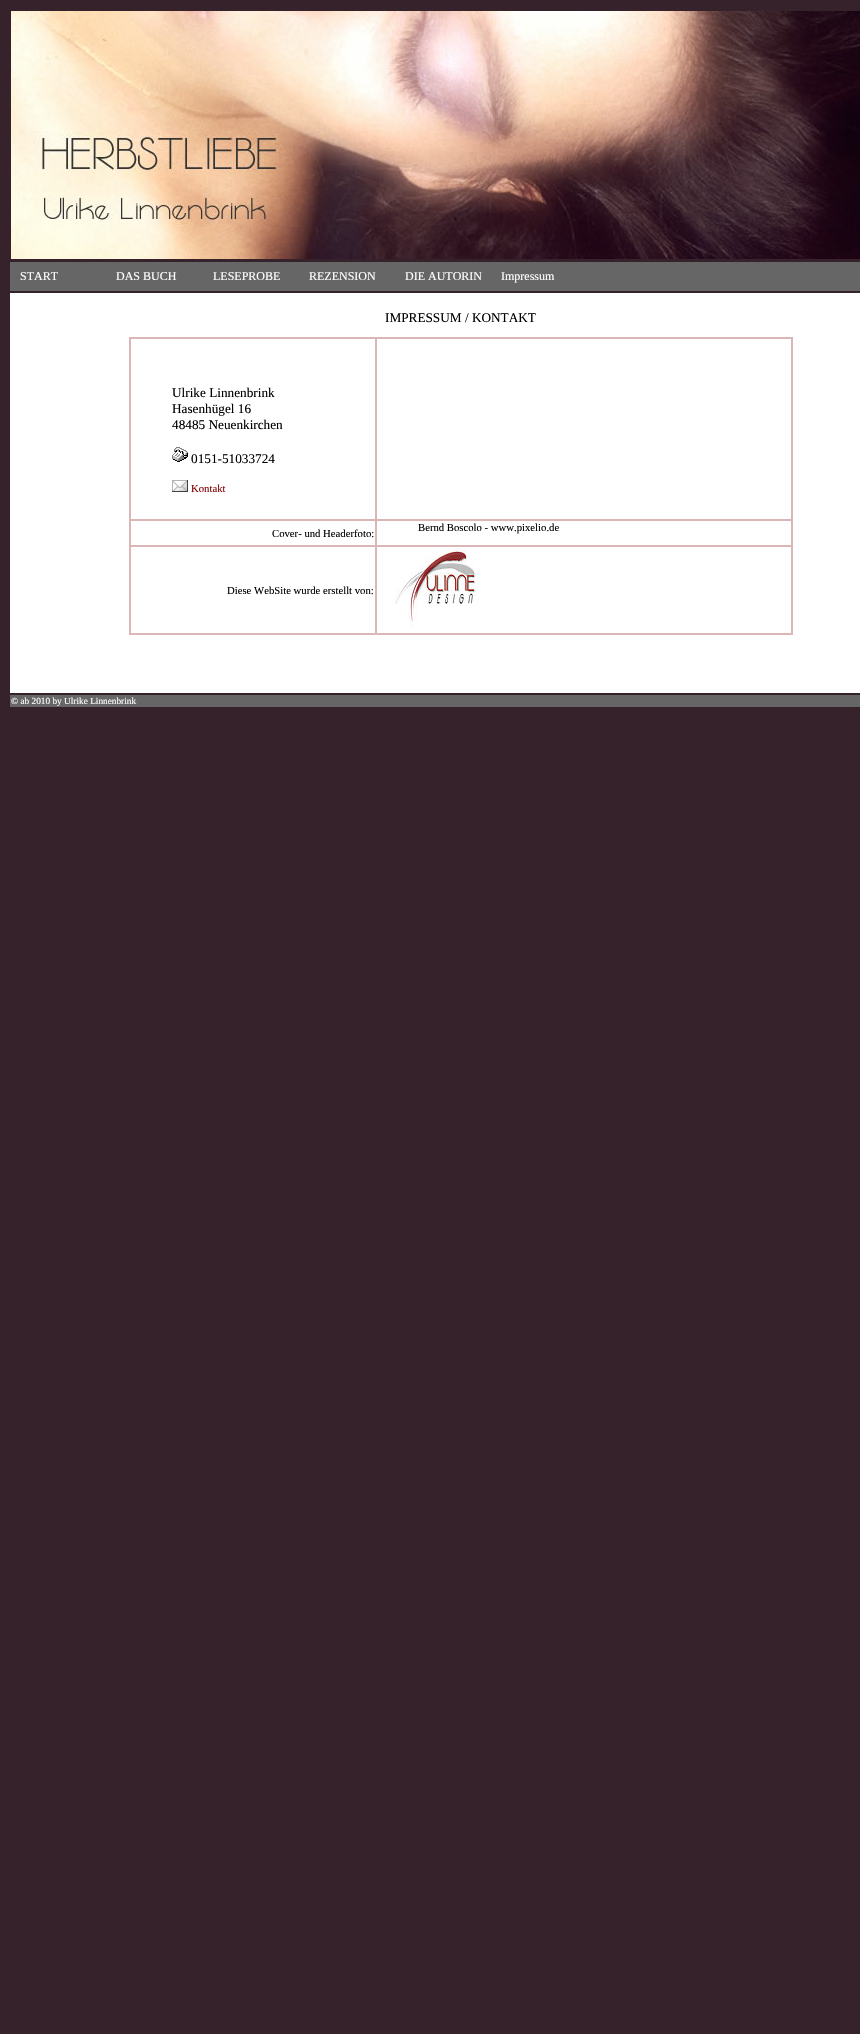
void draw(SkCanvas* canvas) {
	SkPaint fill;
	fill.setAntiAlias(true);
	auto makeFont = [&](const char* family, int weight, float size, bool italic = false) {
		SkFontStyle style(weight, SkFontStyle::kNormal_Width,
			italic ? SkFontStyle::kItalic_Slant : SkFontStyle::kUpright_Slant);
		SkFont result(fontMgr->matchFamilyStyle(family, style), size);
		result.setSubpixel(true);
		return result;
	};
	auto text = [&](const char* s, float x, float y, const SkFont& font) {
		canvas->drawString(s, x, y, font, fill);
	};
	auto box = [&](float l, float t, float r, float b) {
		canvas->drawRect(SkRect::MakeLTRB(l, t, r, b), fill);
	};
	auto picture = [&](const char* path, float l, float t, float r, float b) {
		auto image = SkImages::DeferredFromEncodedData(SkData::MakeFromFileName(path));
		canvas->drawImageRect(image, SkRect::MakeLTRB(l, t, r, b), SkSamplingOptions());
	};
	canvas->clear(0xFF36222B);
	picture("image0.png", 11, 11, 860, 259);
	fill.setColor(0xFF666666);
	box(10, 262, 860, 291);
	fill.setColor(0xFFFFFFFF);
	box(10, 293, 860, 693);
	fill.setColor(0xFFDAB6B6);
	box(129, 337, 793, 635);
	fill.setColor(0xFFFFFFFF);
	box(131, 339, 375, 519);
	picture("image1.png", 172, 447, 188, 462);
	picture("image2.png", 172, 480, 188, 492);
	box(377, 339, 791, 519);
	box(131, 521, 375, 545);
	box(377, 521, 791, 545);
	box(131, 547, 375, 633);
	box(377, 547, 791, 633);
	picture("image3.png", 395, 548, 479, 628);
	fill.setColor(0xFF666666);
	box(10, 695, 860, 707);
	auto font1 = makeFont("Liberation Serif", 400, 12);
	fill.setColor(0xFFFFFFFF);
	text("START", 20, 280, font1);
	text("DAS BUCH", 116, 280, font1);
	text("LESEPROBE", 213, 280, font1);
	text("REZENSION", 309, 280, font1);
	text("DIE AUTORIN", 405, 280, font1);
	text("Impressum", 501, 280, font1);
	auto font2 = makeFont("Liberation Serif", 400, 13.25f);
	fill.setColor(0xFF000000);
	text("IMPRESSUM / KONTAKT", 385, 322, font2);
	text("Ulrike Linnenbrink", 172, 397, font2);
	text("Hasenhügel 16", 172, 413, font2);
	text("48485 Neuenkirchen", 172, 429, font2);
	text("0151-51033724", 191, 463, font2);
	auto font3 = makeFont("Liberation Serif", 400, 10.7f);
	fill.setColor(0xFF800000);
	text("Kontakt", 191, 492, font3);
	fill.setColor(0xFF000000);
	text("Cover- und Headerfoto:", 272, 537, font3);
	text("Bernd Boscolo - www.pixelio.de", 418, 531, font3);
	text("Diese WebSite wurde erstellt von:", 227, 594, font3);
	auto font4 = makeFont("Liberation Serif", 400, 9.3f);
	fill.setColor(0xFFFFFFFF);
	text("© ab 2010 by Ulrike Linnenbrink", 11, 704, font4);
}
